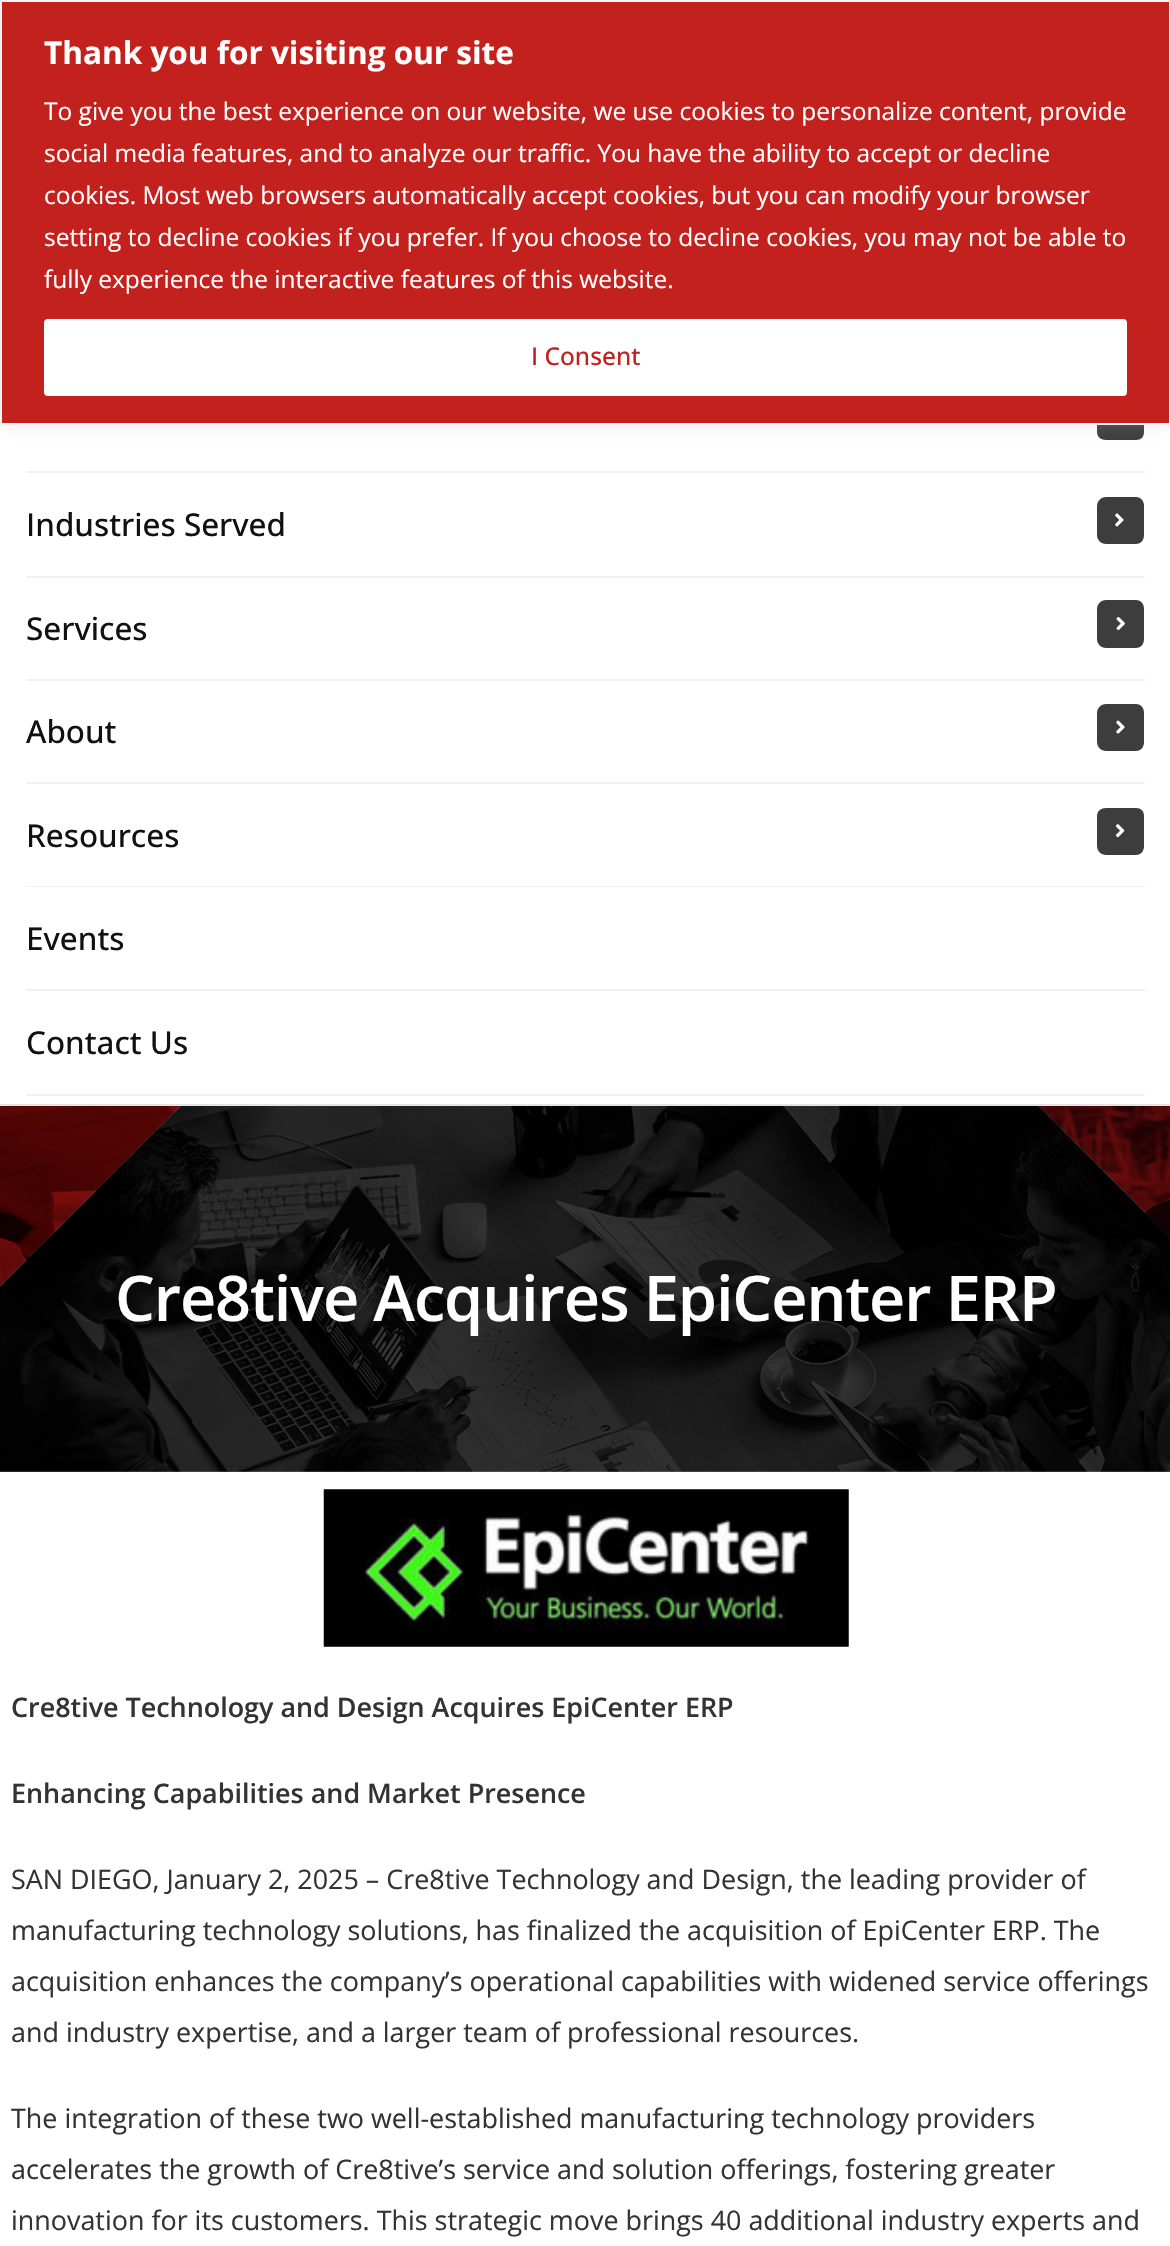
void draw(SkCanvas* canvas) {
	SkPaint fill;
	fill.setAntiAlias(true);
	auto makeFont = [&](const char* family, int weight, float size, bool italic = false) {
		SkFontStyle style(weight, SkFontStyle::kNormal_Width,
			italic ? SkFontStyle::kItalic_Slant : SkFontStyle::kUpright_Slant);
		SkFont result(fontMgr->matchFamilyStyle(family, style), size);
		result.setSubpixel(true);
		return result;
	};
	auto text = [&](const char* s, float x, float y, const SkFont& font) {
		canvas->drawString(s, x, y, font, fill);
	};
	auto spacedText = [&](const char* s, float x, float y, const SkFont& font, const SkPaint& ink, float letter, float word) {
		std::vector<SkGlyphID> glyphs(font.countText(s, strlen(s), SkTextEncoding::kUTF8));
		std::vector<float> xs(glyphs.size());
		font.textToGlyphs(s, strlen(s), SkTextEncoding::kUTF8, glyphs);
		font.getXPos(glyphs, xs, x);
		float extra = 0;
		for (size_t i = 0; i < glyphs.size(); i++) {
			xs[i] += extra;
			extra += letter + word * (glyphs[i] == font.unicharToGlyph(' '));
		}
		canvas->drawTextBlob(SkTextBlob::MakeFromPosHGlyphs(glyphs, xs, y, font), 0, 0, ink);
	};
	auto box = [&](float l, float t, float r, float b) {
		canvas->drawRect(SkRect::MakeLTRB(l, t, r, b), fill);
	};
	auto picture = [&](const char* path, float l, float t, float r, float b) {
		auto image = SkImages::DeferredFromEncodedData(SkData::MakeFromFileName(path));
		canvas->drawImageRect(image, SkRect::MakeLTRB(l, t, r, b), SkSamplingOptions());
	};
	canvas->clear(0xFFFFFFFF);
	fill.setColor(0xFF3D3D3D);
	canvas->drawPath(SkPathBuilder().moveTo(1097, 432).lineTo(1097, 402).cubicTo(1097, 397, 1101, 393, 1106, 393).lineTo(1136, 393).cubicTo(1141, 393, 1144, 397, 1144, 402).lineTo(1144, 432).cubicTo(1144, 437, 1141, 440, 1136, 440).lineTo(1106, 440).cubicTo(1101, 440, 1097, 437, 1097, 432).close().detach(), fill);
	fill.setColor(0x4DACABAB);
	fill.setMaskFilter(SkMaskFilter::MakeBlur(kNormal_SkBlurStyle, 9));
	canvas->drawRect(SkRect::MakeLTRB(0, -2, 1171, 424), fill);
	fill.setMaskFilter(nullptr);
	fill.setColor(0xFFC3211E);
	canvas->drawRect(SkRect::MakeLTRB(1, 1, 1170, 424), fill);
	fill.setStyle(SkPaint::kStroke_Style);
	fill.setStrokeWidth(2);
	fill.setColor(0xFFF4F4F4);
	canvas->drawRect(SkRect::MakeLTRB(1, 1, 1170, 424), fill);
	fill.setStyle(SkPaint::kFill_Style);
	fill.setColor(0xFFFFFFFF);
	canvas->drawRoundRect(SkRect::MakeLTRB(46, 321, 1125, 394), 2, 2, fill);
	fill.setStyle(SkPaint::kStroke_Style);
	fill.setStrokeWidth(4);
	canvas->drawRoundRect(SkRect::MakeLTRB(46, 321, 1125, 394), 2, 2, fill);
	fill.setStyle(SkPaint::kFill_Style);
	fill.setColor(0xFFE4E4E4);
	box(0, 1104, 1170, 1106);
	fill.setColor(0xFFF1F1F1);
	box(26, 471, 1145, 473);
	box(26, 576, 1145, 578);
	fill.setColor(0xFF3D3D3D);
	canvas->drawPath(SkPathBuilder().moveTo(1097, 535).lineTo(1097, 506).cubicTo(1097, 501, 1101, 497, 1106, 497).lineTo(1136, 497).cubicTo(1141, 497, 1144, 501, 1144, 506).lineTo(1144, 535).cubicTo(1144, 540, 1141, 544, 1136, 544).lineTo(1106, 544).cubicTo(1101, 544, 1097, 540, 1097, 535).close().detach(), fill);
	picture("image0.png", 1115, 513, 1124, 527);
	fill.setColor(0xFFF1F1F1);
	box(26, 679, 1145, 681);
	fill.setColor(0xFF3D3D3D);
	canvas->drawPath(SkPathBuilder().moveTo(1097, 639).lineTo(1097, 609).cubicTo(1097, 604, 1101, 600, 1106, 600).lineTo(1136, 600).cubicTo(1141, 600, 1144, 604, 1144, 609).lineTo(1144, 639).cubicTo(1144, 644, 1141, 648, 1136, 648).lineTo(1106, 648).cubicTo(1101, 648, 1097, 644, 1097, 639).close().detach(), fill);
	picture("image1.png", 1116, 617, 1125, 631);
	fill.setColor(0xFFF1F1F1);
	box(26, 782, 1145, 784);
	fill.setColor(0xFF3D3D3D);
	canvas->drawPath(SkPathBuilder().moveTo(1097, 742).lineTo(1097, 713).cubicTo(1097, 708, 1101, 704, 1106, 704).lineTo(1136, 704).cubicTo(1141, 704, 1144, 708, 1144, 713).lineTo(1144, 742).cubicTo(1144, 747, 1141, 751, 1136, 751).lineTo(1106, 751).cubicTo(1101, 751, 1097, 747, 1097, 742).close().detach(), fill);
	picture("image2.png", 1116, 720, 1125, 734);
	fill.setColor(0xFFF1F1F1);
	box(26, 886, 1145, 887);
	fill.setColor(0xFF3D3D3D);
	canvas->drawPath(SkPathBuilder().moveTo(1097, 846).lineTo(1097, 816).cubicTo(1097, 811, 1101, 808, 1106, 808).lineTo(1136, 808).cubicTo(1141, 808, 1144, 811, 1144, 816).lineTo(1144, 846).cubicTo(1144, 851, 1141, 855, 1136, 855).lineTo(1106, 855).cubicTo(1101, 855, 1097, 851, 1097, 846).close().detach(), fill);
	picture("image3.png", 1115, 824, 1125, 838);
	fill.setColor(0xFFF1F1F1);
	box(26, 989, 1145, 991);
	box(26, 1094, 1145, 1096);
	picture("image4.png", 0, 1106, 1170, 1472);
	fill.setColor(0x66000000);
	box(0, 1106, 1170, 1472);
	picture("image5.png", 323, 1489, 849, 1647);
	auto font1 = makeFont("Open Sans", 700, 31.5f);
	fill.setColor(0xFFFFFFFF);
	text("Thank you for visiting our site", 44, 64, font1);
	auto font2 = makeFont("Open Sans", 400, 24.5f);
	text("To give you the best experience on our website, we use cookies to personalize content, provide", 44, 120, font2);
	text("social media features, and to analyze our traffic. You have the ability to accept or decline", 44, 162, font2);
	text("cookies. Most web browsers automatically accept cookies, but you can modify your browser", 44, 204, font2);
	text("setting to decline cookies if you prefer. If you choose to decline cookies, you may not be able to", 44, 246, font2);
	text("fully experience the interactive features of this website.", 44, 288, font2);
	auto font3 = makeFont("Open Sans", 500, 24.5f);
	fill.setColor(0xFFC3211E);
	text("I Consent", 531, 365, font3);
	auto font4 = makeFont("Open Sans", 500, 31.5f);
	fill.setColor(0xFF111111);
	text("Industries Served", 26, 536, font4);
	text("Services", 26, 640, font4);
	text("About", 26, 743, font4);
	text("Resources", 26, 847, font4);
	text("Events", 26, 950, font4);
	text("Contact Us", 26, 1054, font4);
	auto font5 = makeFont("Open Sans", 600, 63);
	fill.setColor(0xFFFFFFFF);
	spacedText("Cre8tive Acquires EpiCenter ERP", 115, 1321, font5, fill, -1.1f, 0);
	auto font6 = makeFont("Open Sans", 600, 26.9f);
	fill.setColor(0xFF333333);
	text("Cre8tive Technology and Design Acquires EpiCenter ERP", 11, 1717, font6);
	text("Enhancing Capabilities and Market Presence", 11, 1803, font6);
	auto font7 = makeFont("Open Sans", 400, 26.9f);
	text("SAN DIEGO, January 2, 2025 – Cre8tive Technology and Design, the leading provider of", 11, 1889, font7);
	text("manufacturing technology solutions, has finalized the acquisition of EpiCenter ERP. The", 11, 1940, font7);
	text("acquisition enhances the company’s operational capabilities with widened service offerings", 11, 1991, font7);
	text("and industry expertise, and a larger team of professional resources.", 11, 2042, font7);
	text("The integration of these two well-established manufacturing technology providers", 11, 2128, font7);
	text("accelerates the growth of Cre8tive’s service and solution offerings, fostering greater", 11, 2179, font7);
	text("innovation for its customers. This strategic move brings 40 additional industry experts and", 11, 2230, font7);
}
